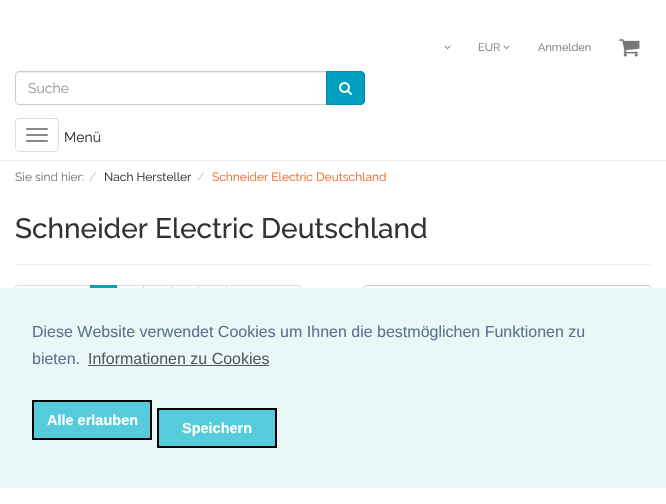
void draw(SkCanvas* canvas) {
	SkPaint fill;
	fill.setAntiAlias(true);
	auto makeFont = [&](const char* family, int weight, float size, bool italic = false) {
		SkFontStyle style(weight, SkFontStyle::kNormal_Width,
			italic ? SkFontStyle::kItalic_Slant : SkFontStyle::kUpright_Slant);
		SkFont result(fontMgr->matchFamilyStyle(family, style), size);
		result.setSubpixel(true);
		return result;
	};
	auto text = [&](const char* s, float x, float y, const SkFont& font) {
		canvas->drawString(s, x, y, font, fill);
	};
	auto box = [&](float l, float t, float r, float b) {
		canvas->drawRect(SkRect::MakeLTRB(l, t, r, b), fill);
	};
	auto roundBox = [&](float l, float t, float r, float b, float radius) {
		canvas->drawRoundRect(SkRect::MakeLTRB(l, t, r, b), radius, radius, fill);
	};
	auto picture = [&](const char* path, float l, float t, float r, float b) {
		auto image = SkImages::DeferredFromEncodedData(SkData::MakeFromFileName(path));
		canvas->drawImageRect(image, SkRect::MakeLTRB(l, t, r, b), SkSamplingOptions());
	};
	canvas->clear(0xFFFFFFFF);
	picture("image0.png", 444, 45, 451, 50);
	picture("image0.png", 503, 45, 510, 50);
	picture("image1.png", 619, 39, 640, 57);
	fill.setColor(0xFFECECEC);
	canvas->drawPath(SkPathBuilder().moveTo(19, 73).lineTo(326, 73).lineTo(326, 72).lineTo(19, 72).cubicTo(17, 72, 16, 74, 16, 76).cubicTo(16, 74, 17, 73, 19, 73).close().detach(), fill);
	fill.setStyle(SkPaint::kStroke_Style);
	fill.setStrokeWidth(1);
	fill.setColor(0xFFCCCCCC);
	canvas->drawPath(SkPathBuilder().moveTo(19, 71.5f).lineTo(326.5f, 71.5f).lineTo(326.5f, 104.5f).lineTo(19, 104.5f).cubicTo(17, 104.5f, 15.5f, 103, 15.5f, 101).lineTo(15.5f, 75).cubicTo(15.5f, 73, 17, 71.5f, 19, 71.5f).close().detach(), fill);
	fill.setStyle(SkPaint::kFill_Style);
	fill.setColor(0xFF009EC0);
	canvas->drawPath(SkPathBuilder().moveTo(326.5f, 71.5f).lineTo(361, 71.5f).cubicTo(363, 71.5f, 364.5f, 73, 364.5f, 75).lineTo(364.5f, 101).cubicTo(364.5f, 103, 363, 104.5f, 361, 104.5f).lineTo(326.5f, 104.5f).close().detach(), fill);
	fill.setStyle(SkPaint::kStroke_Style);
	fill.setColor(0xFF0089A7);
	canvas->drawPath(SkPathBuilder().moveTo(326.5f, 71.5f).lineTo(361, 71.5f).cubicTo(363, 71.5f, 364.5f, 73, 364.5f, 75).lineTo(364.5f, 101).cubicTo(364.5f, 103, 363, 104.5f, 361, 104.5f).lineTo(326.5f, 104.5f).close().detach(), fill);
	picture("image2.png", 339, 82, 352, 95);
	fill.setStyle(SkPaint::kFill_Style);
	fill.setColor(0xFFEEEEEE);
	box(0, 160, 666, 161);
	fill.setStyle(SkPaint::kStroke_Style);
	fill.setColor(0xFFDDDDDD);
	canvas->drawRoundRect(SkRect::MakeLTRB(15.5f, 118.5f, 58.5f, 151.5f), 3.5f, 3.5f, fill);
	fill.setStyle(SkPaint::kFill_Style);
	fill.setColor(0xFF888888);
	roundBox(26, 128, 48, 130, 1);
	roundBox(26, 134, 48, 136, 1);
	roundBox(26, 140, 48, 142, 1);
	fill.setColor(0xFFEEEEEE);
	box(15, 264, 651, 265);
	fill.setStyle(SkPaint::kStroke_Style);
	fill.setColor(0xFFDDDDDD);
	canvas->drawPath(SkPathBuilder().moveTo(18, 285.5f).lineTo(90.5f, 285.5f).lineTo(90.5f, 314.5f).lineTo(18, 314.5f).cubicTo(16.5f, 314.5f, 15.5f, 313.5f, 15.5f, 312).lineTo(15.5f, 288).cubicTo(15.5f, 286.5f, 16.5f, 285.5f, 18, 285.5f).close().detach(), fill);
	canvas->drawRect(SkRect::MakeLTRB(116.5f, 285.5f, 143.5f, 314.5f), fill);
	fill.setStyle(SkPaint::kFill_Style);
	fill.setColor(0xFF009EC0);
	box(90, 285, 117, 288);
	fill.setStyle(SkPaint::kStroke_Style);
	fill.setColor(0xFFDDDDDD);
	canvas->drawRect(SkRect::MakeLTRB(143.5f, 285.5f, 171.5f, 314.5f), fill);
	canvas->drawRect(SkRect::MakeLTRB(171.5f, 285.5f, 198.5f, 314.5f), fill);
	canvas->drawRect(SkRect::MakeLTRB(198.5f, 285.5f, 226.5f, 314.5f), fill);
	fill.setStyle(SkPaint::kFill_Style);
	fill.setColor(0xFFFFFFFF);
	canvas->drawPath(SkPathBuilder().moveTo(226.5f, 285.5f).lineTo(298, 285.5f).cubicTo(299.5f, 285.5f, 300.5f, 286.5f, 300.5f, 288).lineTo(300.5f, 312).cubicTo(300.5f, 313.5f, 299.5f, 314.5f, 298, 314.5f).lineTo(226.5f, 314.5f).close().detach(), fill);
	fill.setStyle(SkPaint::kStroke_Style);
	fill.setColor(0xFFDDDDDD);
	canvas->drawPath(SkPathBuilder().moveTo(226.5f, 285.5f).lineTo(298, 285.5f).cubicTo(299.5f, 285.5f, 300.5f, 286.5f, 300.5f, 288).lineTo(300.5f, 312).cubicTo(300.5f, 313.5f, 299.5f, 314.5f, 298, 314.5f).lineTo(226.5f, 314.5f).close().detach(), fill);
	fill.setColor(0xFFCCCCCC);
	canvas->drawRoundRect(SkRect::MakeLTRB(363.5f, 285.5f, 650.5f, 314.5f), 2.5f, 2.5f, fill);
	fill.setStyle(SkPaint::kFill_Style);
	fill.setColor(0xFFEAF7F7);
	box(0, 288, 666, 488);
	fill.setColor(0xFF585A5A);
	box(88, 365, 269, 366);
	fill.setColor(0xFF56CBDB);
	canvas->drawRect(SkRect::MakeLTRB(33, 401, 151, 439), fill);
	fill.setStyle(SkPaint::kStroke_Style);
	fill.setStrokeWidth(2);
	fill.setColor(0xFF000000);
	canvas->drawRect(SkRect::MakeLTRB(33, 401, 151, 439), fill);
	fill.setStyle(SkPaint::kFill_Style);
	fill.setColor(0xFF56CBDB);
	canvas->drawRect(SkRect::MakeLTRB(158, 409, 276, 447), fill);
	fill.setStyle(SkPaint::kStroke_Style);
	fill.setColor(0xFF000000);
	canvas->drawRect(SkRect::MakeLTRB(158, 409, 276, 447), fill);
	auto font1 = makeFont("Raleway", 400, 11);
	fill.setStyle(SkPaint::kFill_Style);
	fill.setColor(0xFF777777);
	text("EUR", 478, 51, font1);
	text("Anmelden", 538, 51, font1);
	auto font2 = makeFont("Raleway", 400, 14);
	fill.setColor(0xFF999999);
	text("Suche", 28, 93, font2);
	fill.setColor(0xFF333333);
	text("Menü", 64, 142, font2);
	auto font3 = makeFont("Raleway", 400, 12);
	fill.setColor(0xFF777777);
	text("Sie sind hier:", 15, 181, font3);
	fill.setColor(0xFFCCCCCC);
	text("/", 89, 181, font3);
	fill.setColor(0xFF333333);
	text("Nach Hersteller", 104, 181, font3);
	fill.setColor(0xFFCCCCCC);
	text("/", 197, 181, font3);
	fill.setColor(0xFFFC6621);
	text("Schneider Electric Deutschland", 212, 181, font3);
	auto font4 = makeFont("Raleway", 500, 28);
	fill.setColor(0xFF333333);
	text("Schneider Electric Deutschland", 15, 238, font4);
	auto font5 = makeFont("Liberation Sans", 400, 16);
	fill.setColor(0xFF5C7291);
	text("Diese Website verwendet Cookies um Ihnen die bestmöglichen Funktionen zu", 32, 337, font5);
	text("bieten.", 32, 364, font5);
	fill.setColor(0xFF585A5A);
	text("Informationen zu Cookies", 88, 364, font5);
	auto font6 = makeFont("Liberation Sans", 700, 14.5f);
	fill.setColor(0xFFFFFFFF);
	text("Alle erlauben", 47, 425, font6);
	text("Speichern", 182, 433, font6);
}
